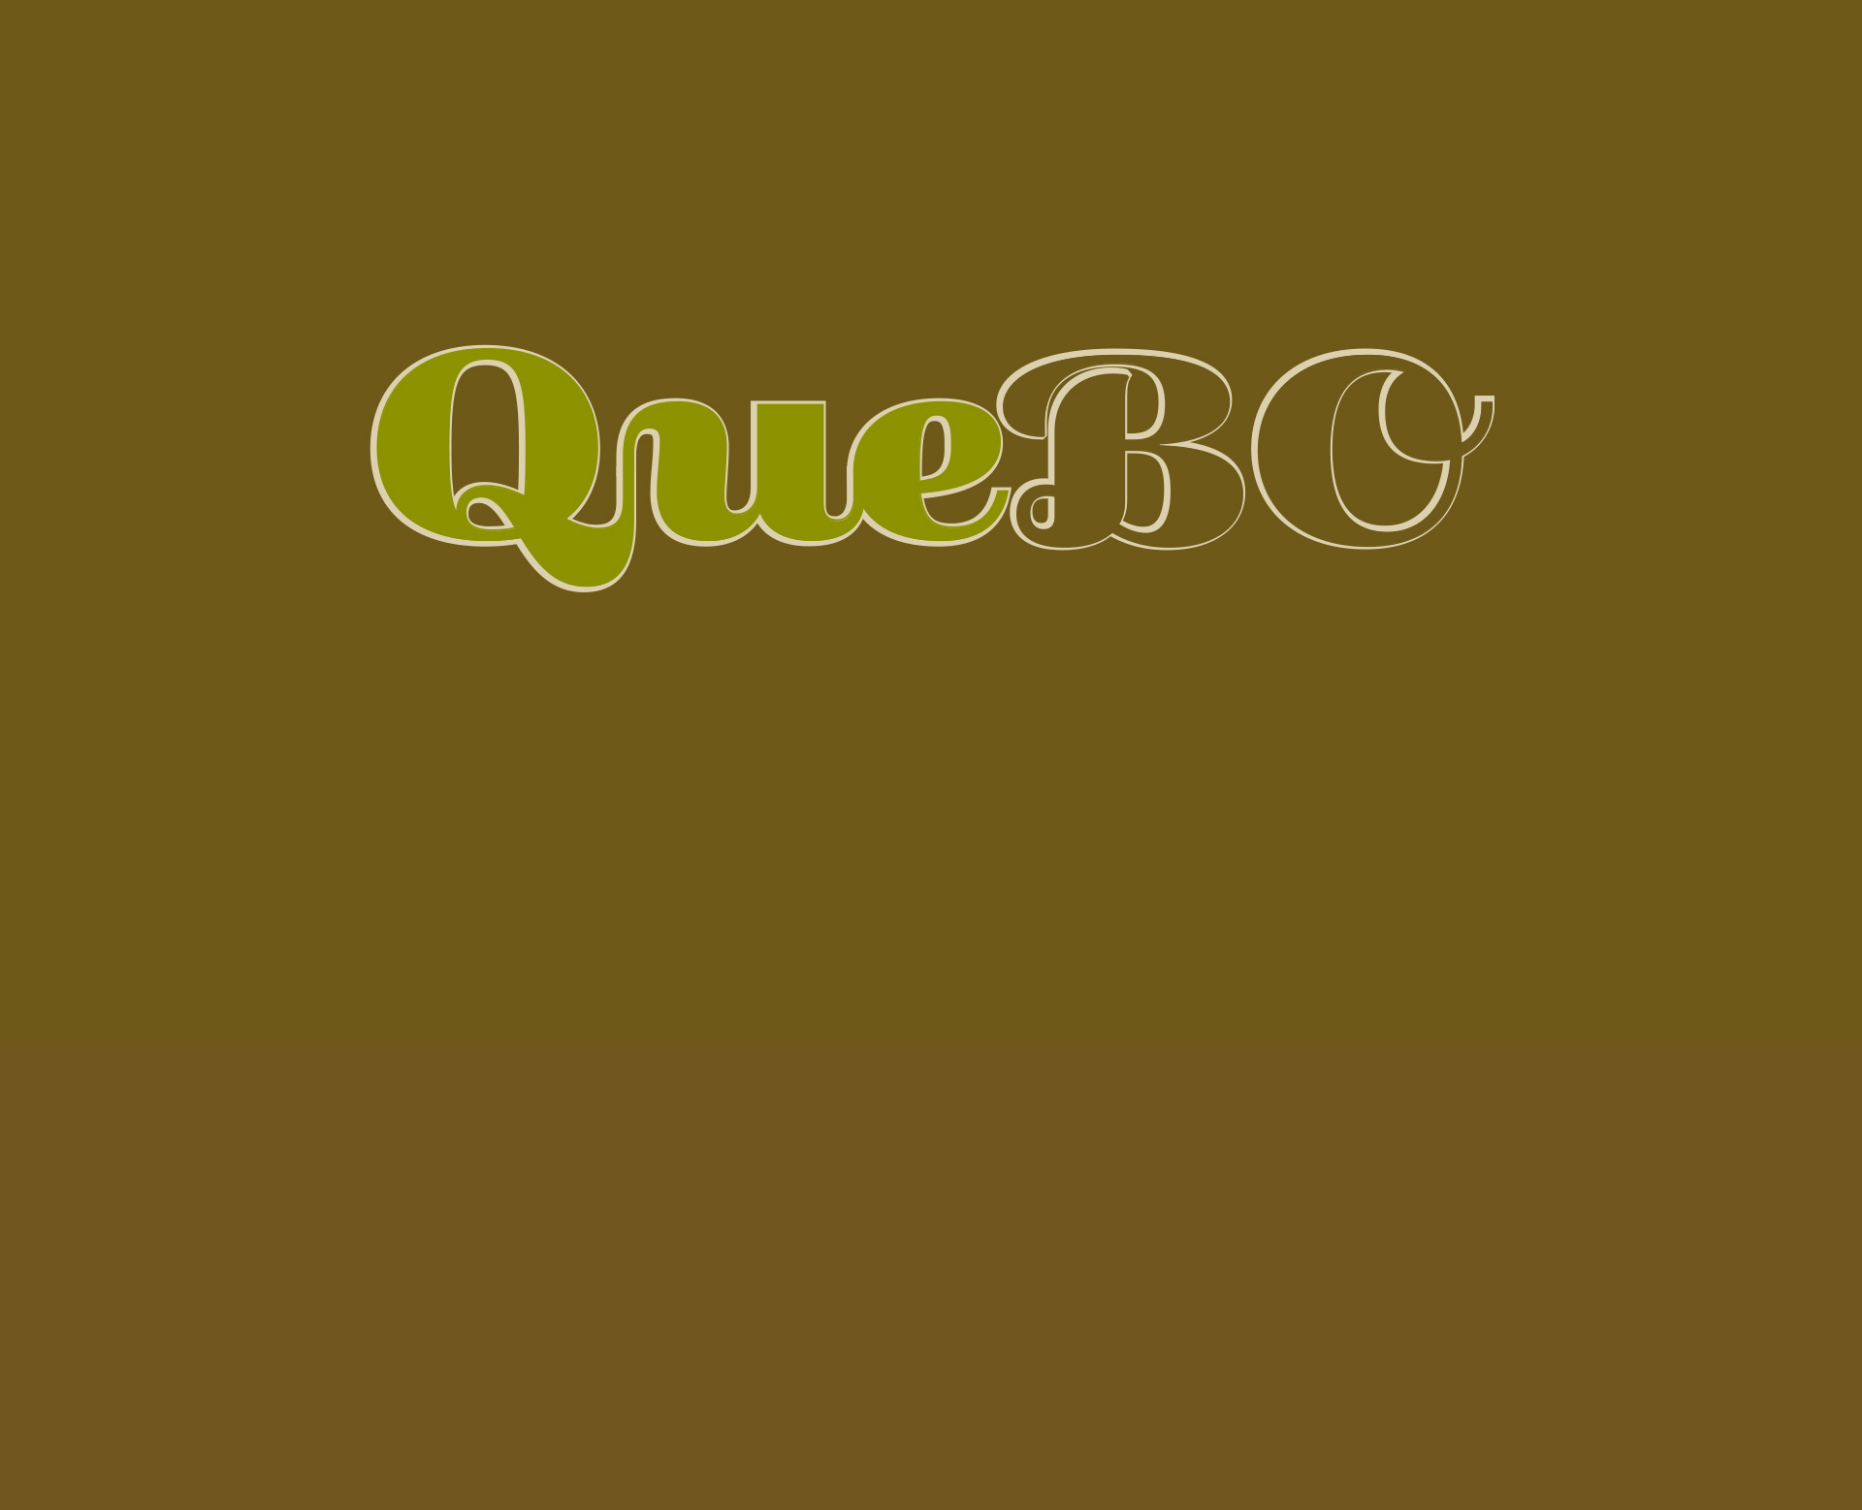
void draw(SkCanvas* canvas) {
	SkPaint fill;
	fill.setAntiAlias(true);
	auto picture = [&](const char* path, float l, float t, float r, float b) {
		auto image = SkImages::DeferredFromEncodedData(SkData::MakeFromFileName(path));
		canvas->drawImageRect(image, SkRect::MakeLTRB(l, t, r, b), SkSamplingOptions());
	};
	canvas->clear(0xFF6E561C);
	picture("image0.png", 0, 0, 1862, 1047);
}
